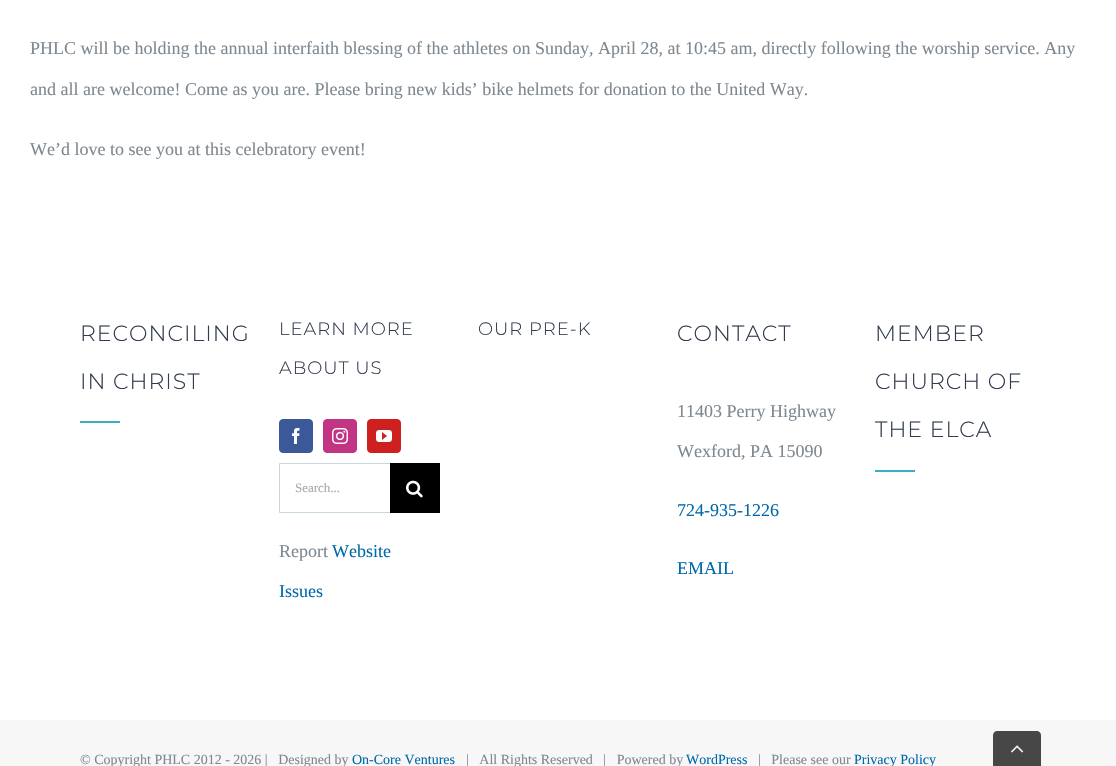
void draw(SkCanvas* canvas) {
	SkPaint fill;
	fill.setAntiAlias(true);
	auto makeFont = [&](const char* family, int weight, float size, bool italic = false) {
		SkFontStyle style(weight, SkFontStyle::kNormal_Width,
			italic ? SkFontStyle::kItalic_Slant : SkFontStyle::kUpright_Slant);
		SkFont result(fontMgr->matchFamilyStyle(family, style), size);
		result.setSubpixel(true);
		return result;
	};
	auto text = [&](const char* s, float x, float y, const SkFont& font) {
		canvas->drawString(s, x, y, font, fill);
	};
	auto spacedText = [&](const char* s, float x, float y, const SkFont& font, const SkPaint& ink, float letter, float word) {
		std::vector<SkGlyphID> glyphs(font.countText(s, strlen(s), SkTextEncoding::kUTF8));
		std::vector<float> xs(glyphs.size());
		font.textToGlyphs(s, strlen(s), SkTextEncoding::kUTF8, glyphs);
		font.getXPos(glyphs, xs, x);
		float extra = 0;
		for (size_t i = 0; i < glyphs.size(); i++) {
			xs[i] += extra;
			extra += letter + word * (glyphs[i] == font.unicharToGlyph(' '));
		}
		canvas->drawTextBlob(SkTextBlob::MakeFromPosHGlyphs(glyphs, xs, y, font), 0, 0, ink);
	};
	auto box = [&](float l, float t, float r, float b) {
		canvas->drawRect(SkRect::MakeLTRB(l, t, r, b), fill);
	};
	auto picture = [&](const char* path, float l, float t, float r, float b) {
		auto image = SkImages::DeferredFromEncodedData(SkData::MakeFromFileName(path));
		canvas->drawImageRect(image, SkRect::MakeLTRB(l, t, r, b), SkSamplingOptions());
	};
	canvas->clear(0xFFFFFFFF);
	fill.setColor(0xFF3BAFBF);
	box(80, 421, 120, 423);
	fill.setColor(0xFF3B5998);
	canvas->drawRoundRect(SkRect::MakeLTRB(279.5f, 419.5f, 312.5f, 452.5f), 3.5f, 3.5f, fill);
	fill.setStyle(SkPaint::kStroke_Style);
	fill.setStrokeWidth(1);
	canvas->drawRoundRect(SkRect::MakeLTRB(279.5f, 419.5f, 312.5f, 452.5f), 3.5f, 3.5f, fill);
	picture("image0.png", 292, 428, 300, 444);
	fill.setStyle(SkPaint::kFill_Style);
	fill.setColor(0xFFC13584);
	canvas->drawRoundRect(SkRect::MakeLTRB(323.5f, 419.5f, 356.5f, 452.5f), 3.5f, 3.5f, fill);
	fill.setStyle(SkPaint::kStroke_Style);
	canvas->drawRoundRect(SkRect::MakeLTRB(323.5f, 419.5f, 356.5f, 452.5f), 3.5f, 3.5f, fill);
	picture("image1.png", 332, 428, 348, 444);
	fill.setStyle(SkPaint::kFill_Style);
	fill.setColor(0xFFCD201F);
	canvas->drawRoundRect(SkRect::MakeLTRB(367.5f, 419.5f, 400.5f, 452.5f), 3.5f, 3.5f, fill);
	fill.setStyle(SkPaint::kStroke_Style);
	canvas->drawRoundRect(SkRect::MakeLTRB(367.5f, 419.5f, 400.5f, 452.5f), 3.5f, 3.5f, fill);
	picture("image2.png", 376, 430, 392, 442);
	fill.setStyle(SkPaint::kFill_Style);
	fill.setColor(0xFFC8D7D9);
	canvas->drawPath(SkPathBuilder().moveTo(279, 463).lineTo(390, 463).lineTo(390, 464).lineTo(280, 464).close().detach(), fill);
	canvas->drawPath(SkPathBuilder().moveTo(390, 513).lineTo(279, 513).lineTo(280, 512).lineTo(390, 512).close().detach(), fill);
	fill.setColor(0xC4B7CBCE);
	canvas->drawPath(SkPathBuilder().moveTo(279, 513).lineTo(279, 463).lineTo(280, 464).lineTo(280, 512).close().detach(), fill);
	fill.setColor(0xFF000000);
	box(390, 463, 440, 513);
	picture("image3.png", 406, 480, 423, 498);
	fill.setColor(0xFF3BAFBF);
	box(875, 470, 915, 472);
	fill.setColor(0xFFF7F7F7);
	box(0, 720, 1116, 766);
	fill.setColor(0xFF474747);
	canvas->drawPath(SkPathBuilder().moveTo(997, 731).lineTo(1037, 731).cubicTo(1039, 731, 1041, 733, 1041, 735).lineTo(1041, 766).lineTo(993, 766).lineTo(993, 735).cubicTo(993, 733, 995, 731, 997, 731).close().detach(), fill);
	picture("image4.png", 1011, 745, 1024, 753);
	auto font1 = makeFont("Liberation Serif", 400, 18);
	fill.setColor(0xFF7E8890);
	text("PHLC will be holding the annual interfaith blessing of the athletes on Sunday, April 28, at 10:45 am, directly following the worship service. Any", 30, 54, font1);
	text("and all are welcome! Come as you are. Please bring new kids’ bike helmets for donation to the United Way.", 30, 95, font1);
	text("We’d love to see you at this celebratory event!", 30, 155, font1);
	auto font2 = makeFont("Montserrat", 300, 22);
	fill.setColor(0xFF333C4E);
	spacedText("RECONCILING", 80, 341, font2, fill, 1, 0);
	spacedText("IN CHRIST", 80, 389, font2, fill, 1, 0);
	auto font3 = makeFont("Montserrat", 300, 18);
	spacedText("LEARN MORE", 279, 335, font3, fill, 1, 0);
	spacedText("ABOUT US", 279, 374, font3, fill, 1, 0);
	auto font4 = makeFont("Liberation Serif", 400, 13);
	fill.setColor(0xFFAAA9A9);
	text("Search...", 295, 492, font4);
	fill.setColor(0xFF7E8890);
	text("Report", 279, 557, font1);
	fill.setColor(0xFF0069AA);
	text("Website", 332, 557, font1);
	text("Issues", 279, 597, font1);
	fill.setColor(0xFF333C4E);
	spacedText("OUR PRE-K", 478, 335, font3, fill, 1, 0);
	spacedText("CONTACT", 677, 341, font2, fill, 1, 0);
	fill.setColor(0xFF7E8890);
	text("11403 Perry Highway", 677, 417, font1);
	text("Wexford, PA 15090", 677, 457, font1);
	fill.setColor(0xFF0069AA);
	text("724-935-1226", 677, 516, font1);
	text("EMAIL", 677, 574, font1);
	fill.setColor(0xFF333C4E);
	spacedText("MEMBER", 875, 341, font2, fill, 1, 0);
	spacedText("CHURCH OF", 875, 389, font2, fill, 1, 0);
	spacedText("THE ELCA", 875, 437, font2, fill, 1, 0);
	auto font5 = makeFont("Liberation Serif", 400, 14);
	fill.setColor(0xFF7E8890);
	text("© Copyright PHLC 2012 - 2026 |   Designed by", 80, 764, font5);
	fill.setColor(0xFF0069AA);
	text("On-Core Ventures", 352, 764, font5);
	fill.setColor(0xFF7E8890);
	text("|   All Rights Reserved   |   Powered by", 466, 764, font5);
	fill.setColor(0xFF0069AA);
	text("WordPress", 686, 764, font5);
	fill.setColor(0xFF7E8890);
	text("|   Please see our", 758, 764, font5);
	fill.setColor(0xFF0069AA);
	text("Privacy Policy", 854, 764, font5);
}
